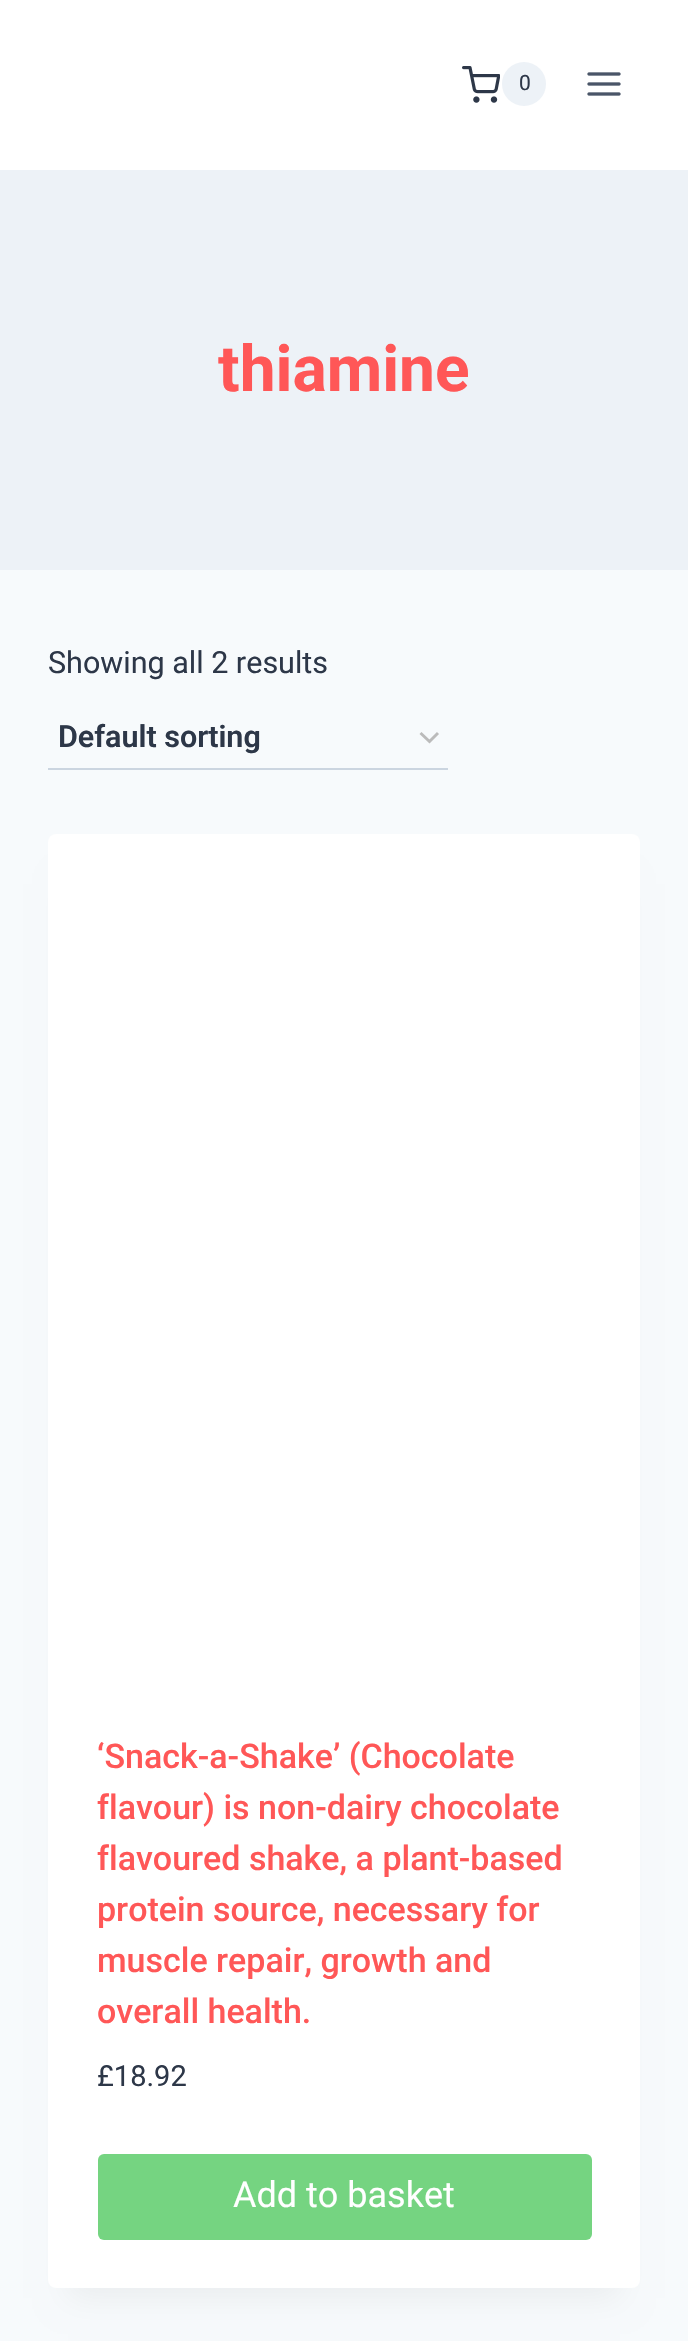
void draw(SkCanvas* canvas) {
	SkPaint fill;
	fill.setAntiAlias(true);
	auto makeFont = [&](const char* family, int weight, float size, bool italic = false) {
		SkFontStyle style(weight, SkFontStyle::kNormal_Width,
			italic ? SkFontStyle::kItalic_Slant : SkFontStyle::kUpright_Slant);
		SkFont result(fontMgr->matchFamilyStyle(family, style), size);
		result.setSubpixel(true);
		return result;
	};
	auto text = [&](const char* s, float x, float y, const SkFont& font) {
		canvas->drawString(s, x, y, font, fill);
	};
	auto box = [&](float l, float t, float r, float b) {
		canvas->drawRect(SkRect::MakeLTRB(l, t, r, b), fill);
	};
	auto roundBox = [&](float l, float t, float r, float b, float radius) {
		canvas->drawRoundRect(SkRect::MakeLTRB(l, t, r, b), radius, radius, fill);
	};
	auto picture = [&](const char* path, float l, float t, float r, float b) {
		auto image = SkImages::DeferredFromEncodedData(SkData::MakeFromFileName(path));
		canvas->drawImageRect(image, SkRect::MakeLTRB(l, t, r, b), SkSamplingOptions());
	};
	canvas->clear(0xFFF7FAFC);
	fill.setColor(0xFFFFFFFF);
	box(0, 0, 688, 170);
	picture("image0.png", 462, 66, 500, 103);
	fill.setColor(0xFFEDF2F7);
	canvas->drawCircle(524, 84, 22, fill);
	picture("image1.png", 587, 72, 621, 96);
	box(0, 170, 688, 570);
	fill.setStyle(SkPaint::kStroke_Style);
	fill.setStrokeWidth(2.9f);
	fill.setColor(0xFFBBBBBB);
	canvas->drawPath(SkPathBuilder().moveTo(420.5f, 733).lineTo(429.5f, 741.5f).lineTo(438, 733).detach(), fill);
	fill.setStyle(SkPaint::kFill_Style);
	fill.setColor(0xFFCBD5E0);
	box(48, 768, 448, 770);
	fill.setColor(0x0D000000);
	fill.setMaskFilter(SkMaskFilter::MakeBlur(kNormal_SkBlurStyle, 15));
	canvas->drawRect(SkRect::MakeLTRB(68, 884, 620, 2298), fill);
	fill.setMaskFilter(nullptr);
	fill.setColor(0xFFFFFFFF);
	roundBox(48, 834, 640, 2288, 8);
	fill.setColor(0xFF75D481);
	roundBox(98, 2154, 592, 2240, 6);
	auto font1 = makeFont("Roboto", 400, 21);
	fill.setColor(0xFF2D3748);
	text("0", 519, 90, font1);
	auto font2 = makeFont("Roboto", 700, 64);
	fill.setColor(0xFFFF5757);
	text("thiamine", 218, 391, font2);
	auto font3 = makeFont("Roboto", 400, 30.5f);
	fill.setColor(0xFF2D3748);
	text("Showing all 2 results", 48, 673, font3);
	auto font4 = makeFont("Roboto", 600, 30.5f);
	text("Default sorting", 58, 747, font4);
	auto font5 = makeFont("Roboto", 500, 34);
	fill.setColor(0xFFFF5757);
	text("‘Snack-a-Shake’ (Chocolate", 97, 1768, font5);
	text("flavour) is non-dairy chocolate", 97, 1819, font5);
	text("flavoured shake, a plant-based", 97, 1870, font5);
	text("protein source, necessary for", 97, 1921, font5);
	text("muscle repair, growth and", 97, 1972, font5);
	text("overall health.", 97, 2023, font5);
	auto font6 = makeFont("Roboto", 400, 29);
	fill.setColor(0xFF2D3748);
	text("£18.92", 97, 2086, font6);
	auto font7 = makeFont("Roboto", 400, 36);
	fill.setColor(0xFFFFFFFF);
	text("Add to basket", 233, 2207, font7);
}
